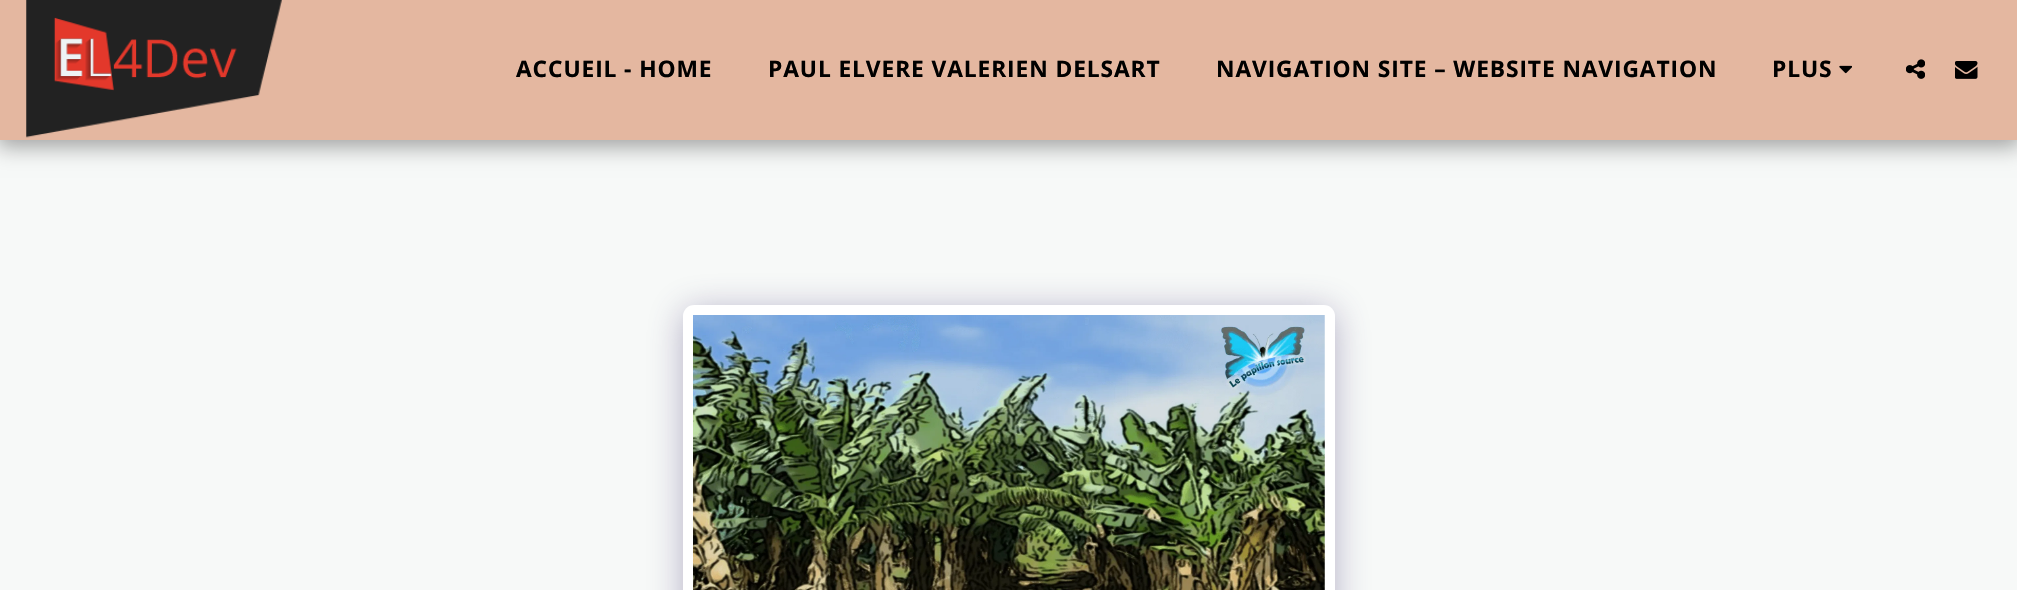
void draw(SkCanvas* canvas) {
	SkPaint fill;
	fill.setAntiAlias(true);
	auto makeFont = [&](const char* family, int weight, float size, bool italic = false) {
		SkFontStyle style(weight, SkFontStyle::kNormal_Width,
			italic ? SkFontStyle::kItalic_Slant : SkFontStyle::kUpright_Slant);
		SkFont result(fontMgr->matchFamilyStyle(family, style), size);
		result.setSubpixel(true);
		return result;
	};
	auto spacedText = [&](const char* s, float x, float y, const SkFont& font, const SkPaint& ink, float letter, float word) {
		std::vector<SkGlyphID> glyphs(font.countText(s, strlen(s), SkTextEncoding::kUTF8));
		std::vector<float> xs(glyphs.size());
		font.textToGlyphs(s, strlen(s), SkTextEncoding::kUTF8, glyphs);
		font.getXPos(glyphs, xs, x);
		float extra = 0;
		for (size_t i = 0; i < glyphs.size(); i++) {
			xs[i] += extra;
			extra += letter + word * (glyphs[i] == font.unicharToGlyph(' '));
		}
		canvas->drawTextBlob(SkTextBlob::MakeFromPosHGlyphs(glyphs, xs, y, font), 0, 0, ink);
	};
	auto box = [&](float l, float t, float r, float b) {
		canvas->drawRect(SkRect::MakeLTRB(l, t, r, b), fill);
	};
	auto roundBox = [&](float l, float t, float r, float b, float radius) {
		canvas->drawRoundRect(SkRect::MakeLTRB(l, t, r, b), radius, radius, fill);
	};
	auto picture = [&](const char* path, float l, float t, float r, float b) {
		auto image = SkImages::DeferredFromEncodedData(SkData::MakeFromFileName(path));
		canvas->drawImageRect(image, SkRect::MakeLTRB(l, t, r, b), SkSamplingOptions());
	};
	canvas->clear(0xFFF7F9F8);
	fill.setColor(0x59000000);
	fill.setMaskFilter(SkMaskFilter::MakeBlur(kNormal_SkBlurStyle, 10.5f));
	canvas->drawRect(SkRect::MakeLTRB(-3, 0, 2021, 147), fill);
	fill.setMaskFilter(nullptr);
	fill.setColor(0xFFE4B7A0);
	box(0, 0, 2017, 140);
	picture("image0.png", 26, 0, 282, 138);
	picture("image1.png", 1839, 65, 1852, 74);
	picture("image2.png", 1906, 59, 1925, 79);
	picture("image3.png", 1955, 61, 1978, 79);
	fill.setColor(0x664D3F7A);
	fill.setMaskFilter(SkMaskFilter::MakeBlur(kNormal_SkBlurStyle, 17.5f));
	canvas->drawRoundRect(SkRect::MakeLTRB(683, 310, 1335, 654), 11, 11, fill);
	fill.setMaskFilter(nullptr);
	fill.setColor(0xFFFFFFFF);
	roundBox(683, 305, 1335, 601, 11);
	picture("image4.png", 693, 315, 1325, 590);
	auto font1 = makeFont("Open Sans", 700, 22.75f);
	fill.setColor(0xFF000000);
	spacedText("ACCUEIL - HOME", 516, 77, font1, fill, 0.9f, 0);
	spacedText("PAUL ELVERE VALERIEN DELSART", 768, 77, font1, fill, 0.9f, 0);
	spacedText("NAVIGATION SITE – WEBSITE NAVIGATION", 1216, 77, font1, fill, 0.9f, 0);
	spacedText("PLUS", 1772, 77, font1, fill, 0.9f, 0);
}
